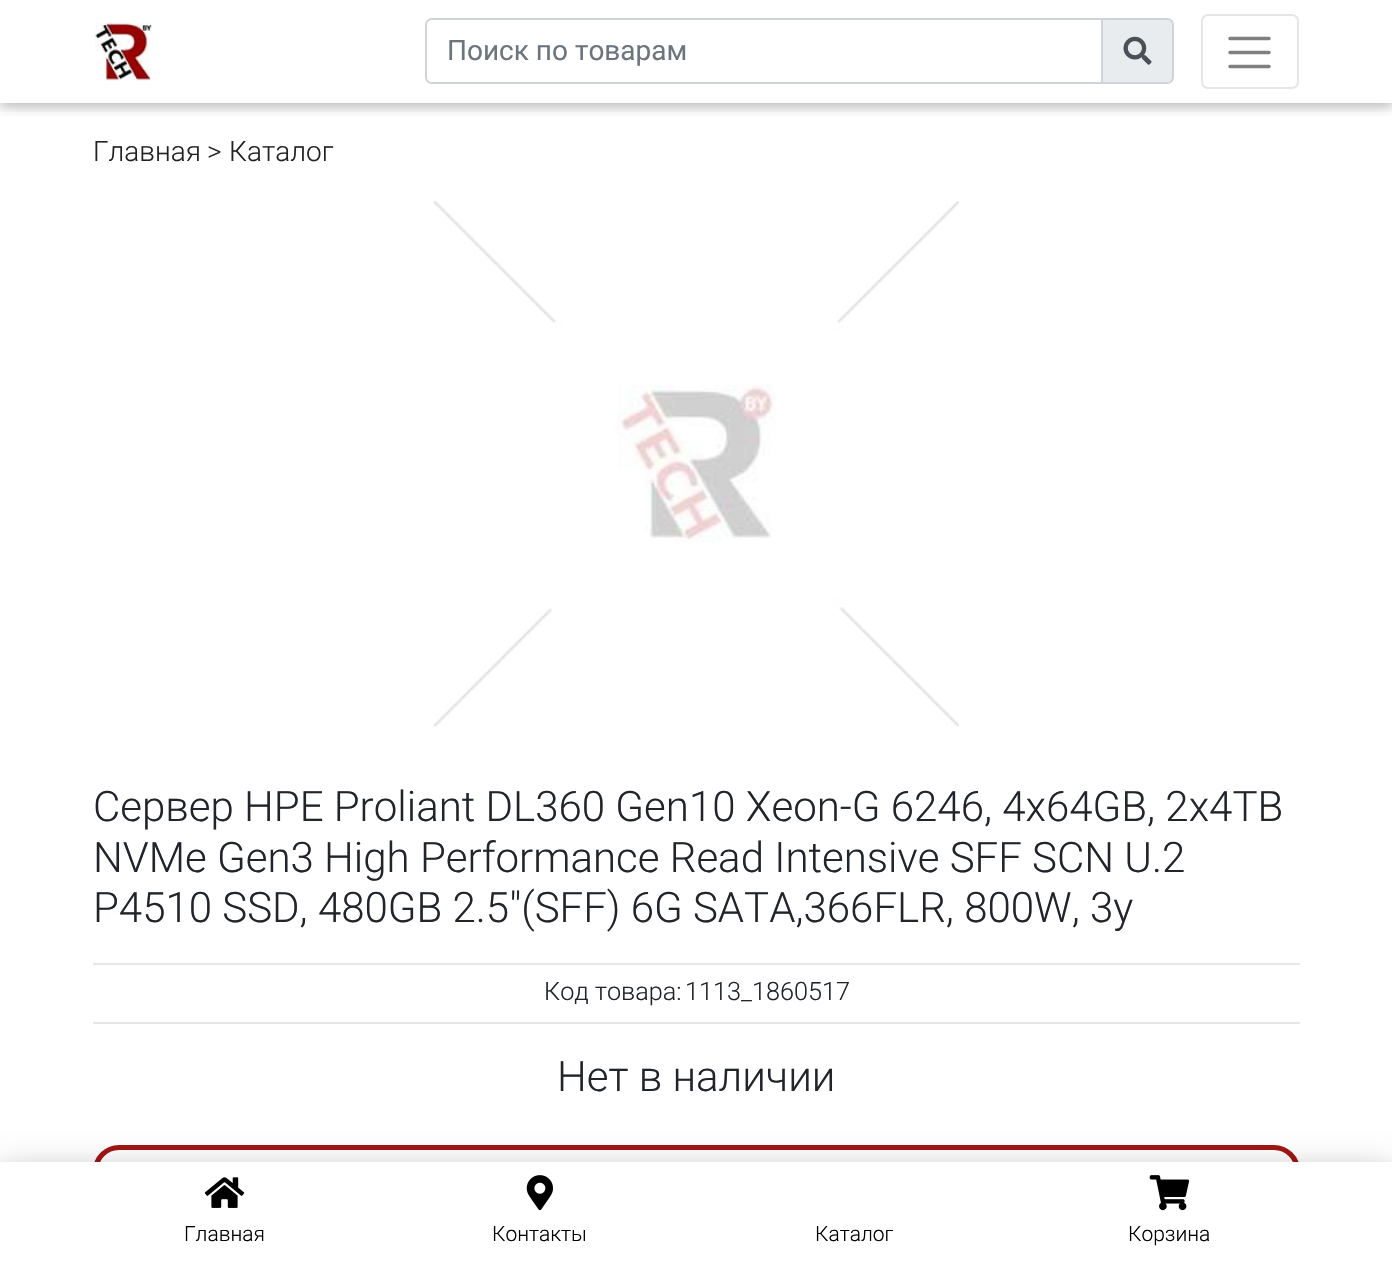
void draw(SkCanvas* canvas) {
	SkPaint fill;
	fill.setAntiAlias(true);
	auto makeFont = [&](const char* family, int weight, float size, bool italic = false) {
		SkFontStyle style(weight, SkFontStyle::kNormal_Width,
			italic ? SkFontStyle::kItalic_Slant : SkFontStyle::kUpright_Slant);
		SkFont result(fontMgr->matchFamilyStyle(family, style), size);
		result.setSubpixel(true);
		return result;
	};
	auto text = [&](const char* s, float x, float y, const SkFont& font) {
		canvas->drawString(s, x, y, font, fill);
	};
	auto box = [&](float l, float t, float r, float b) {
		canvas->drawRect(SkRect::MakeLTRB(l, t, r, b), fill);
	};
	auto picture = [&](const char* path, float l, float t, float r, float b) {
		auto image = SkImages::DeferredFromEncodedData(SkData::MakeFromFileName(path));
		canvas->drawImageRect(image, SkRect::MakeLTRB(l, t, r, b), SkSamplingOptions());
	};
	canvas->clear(0xFFFFFFFF);
	canvas->save();
	canvas->clipRect(SkRect::MakeLTRB(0, 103, 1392, 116));
	fill.setColor(0x1F000000);
	fill.setMaskFilter(SkMaskFilter::MakeBlur(kNormal_SkBlurStyle, 9));
	canvas->drawRect(SkRect::MakeLTRB(0, 4, 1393, 107), fill);
	fill.setMaskFilter(nullptr);
	canvas->restore();
	canvas->save();
	canvas->clipRect(SkRect::MakeLTRB(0, 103, 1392, 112));
	fill.setColor(0x29000000);
	fill.setMaskFilter(SkMaskFilter::MakeBlur(kNormal_SkBlurStyle, 4.5f));
	canvas->drawRect(SkRect::MakeLTRB(0, 4, 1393, 107), fill);
	fill.setMaskFilter(nullptr);
	canvas->restore();
	picture("image0.png", 94, 22, 152, 81);
	fill.setColor(0xFFE9ECEF);
	canvas->drawPath(SkPathBuilder().moveTo(1102, 19).lineTo(1167, 19).cubicTo(1170.5f, 19, 1173, 21.5f, 1173, 25).lineTo(1173, 77).cubicTo(1173, 80.5f, 1170.5f, 83, 1167, 83).lineTo(1102, 83).close().detach(), fill);
	fill.setStyle(SkPaint::kStroke_Style);
	fill.setStrokeWidth(2);
	fill.setColor(0xFFCED4DA);
	canvas->drawPath(SkPathBuilder().moveTo(1102, 19).lineTo(1167, 19).cubicTo(1170.5f, 19, 1173, 21.5f, 1173, 25).lineTo(1173, 77).cubicTo(1173, 80.5f, 1170.5f, 83, 1167, 83).lineTo(1102, 83).close().detach(), fill);
	canvas->drawPath(SkPathBuilder().moveTo(432, 19).lineTo(1102, 19).lineTo(1102, 83).lineTo(432, 83).cubicTo(428.5f, 83, 426, 80.5f, 426, 77).lineTo(426, 25).cubicTo(426, 21.5f, 428.5f, 19, 432, 19).close().detach(), fill);
	picture("image1.png", 1123, 36, 1152, 65);
	fill.setColor(0xFFE6E6E6);
	canvas->drawRoundRect(SkRect::MakeLTRB(1202, 15, 1298, 88), 6, 6, fill);
	fill.setStrokeWidth(3.5f);
	fill.setStrokeCap(SkPaint::kRound_Cap);
	fill.setColor(0xFF808080);
	canvas->drawPath(SkPathBuilder().moveTo(1230, 38.5f).lineTo(1269, 38.5f).moveTo(1230, 52.5f).lineTo(1269, 52.5f).moveTo(1230, 66.5f).lineTo(1269, 66.5f).detach(), fill);
	picture("image2.png", 434, 201, 959, 727);
	fill.setStyle(SkPaint::kFill_Style);
	fill.setColor(0xFFE6E6E6);
	box(93, 963, 1300, 965);
	box(93, 1022, 1300, 1024);
	fill.setStyle(SkPaint::kStroke_Style);
	fill.setStrokeWidth(5);
	fill.setStrokeCap(SkPaint::kButt_Cap);
	fill.setColor(0xFFA01514);
	canvas->drawRoundRect(SkRect::MakeLTRB(95.5f, 1147.5f, 1297.5f, 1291.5f), 23.5f, 23.5f, fill);
	fill.setStyle(SkPaint::kFill_Style);
	fill.setColor(0x30000000);
	fill.setMaskFilter(SkMaskFilter::MakeBlur(kNormal_SkBlurStyle, 17.5f));
	canvas->drawRect(SkRect::MakeLTRB(0, 1173, 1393, 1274), fill);
	fill.setMaskFilter(nullptr);
	fill.setColor(0x33000000);
	fill.setMaskFilter(SkMaskFilter::MakeBlur(kNormal_SkBlurStyle, 15));
	canvas->drawRect(SkRect::MakeLTRB(0, 1176, 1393, 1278), fill);
	fill.setMaskFilter(nullptr);
	fill.setColor(0xFFFFFFFF);
	box(0, 1162, 1392, 1263);
	picture("image3.png", 204, 1177, 245, 1208);
	picture("image4.png", 526, 1175, 553, 1211);
	picture("image5.png", 1149, 1175, 1190, 1211);
	auto font1 = makeFont("Roboto", 400, 28);
	fill.setColor(0xFF6C757D);
	text("Поиск по товарам", 447, 60, font1);
	auto font2 = makeFont("Roboto", 300, 28);
	fill.setColor(0xFF212121);
	text("Главная", 93, 161, font2);
	fill.setColor(0xFF212529);
	text(">", 207, 161, font2);
	fill.setColor(0xFF212121);
	text("Каталог", 229, 161, font2);
	auto font3 = makeFont("Roboto", 300, 42);
	fill.setColor(0xFF212529);
	text("Сервер HPE Proliant DL360 Gen10 Xeon-G 6246, 4x64GB, 2x4TB", 93, 821, font3);
	text("NVMe Gen3 High Performance Read Intensive SFF SCN U.2", 93, 872, font3);
	text("P4510 SSD, 480GB 2.5\"(SFF) 6G SATA,366FLR, 800W, 3y", 93, 922, font3);
	auto font4 = makeFont("Roboto", 300, 25.25f);
	text("Код товара:", 544, 1000, font4);
	text("1113_1860517", 685, 1000, font4);
	text("Нет в наличии", 557, 1091, font3);
	auto font5 = makeFont("Roboto", 300, 21);
	fill.setColor(0xFF000000);
	text("Главная", 184, 1241, font5);
	text("Контакты", 492, 1241, font5);
	text("Каталог", 815, 1241, font5);
	text("Корзина", 1128, 1241, font5);
}
